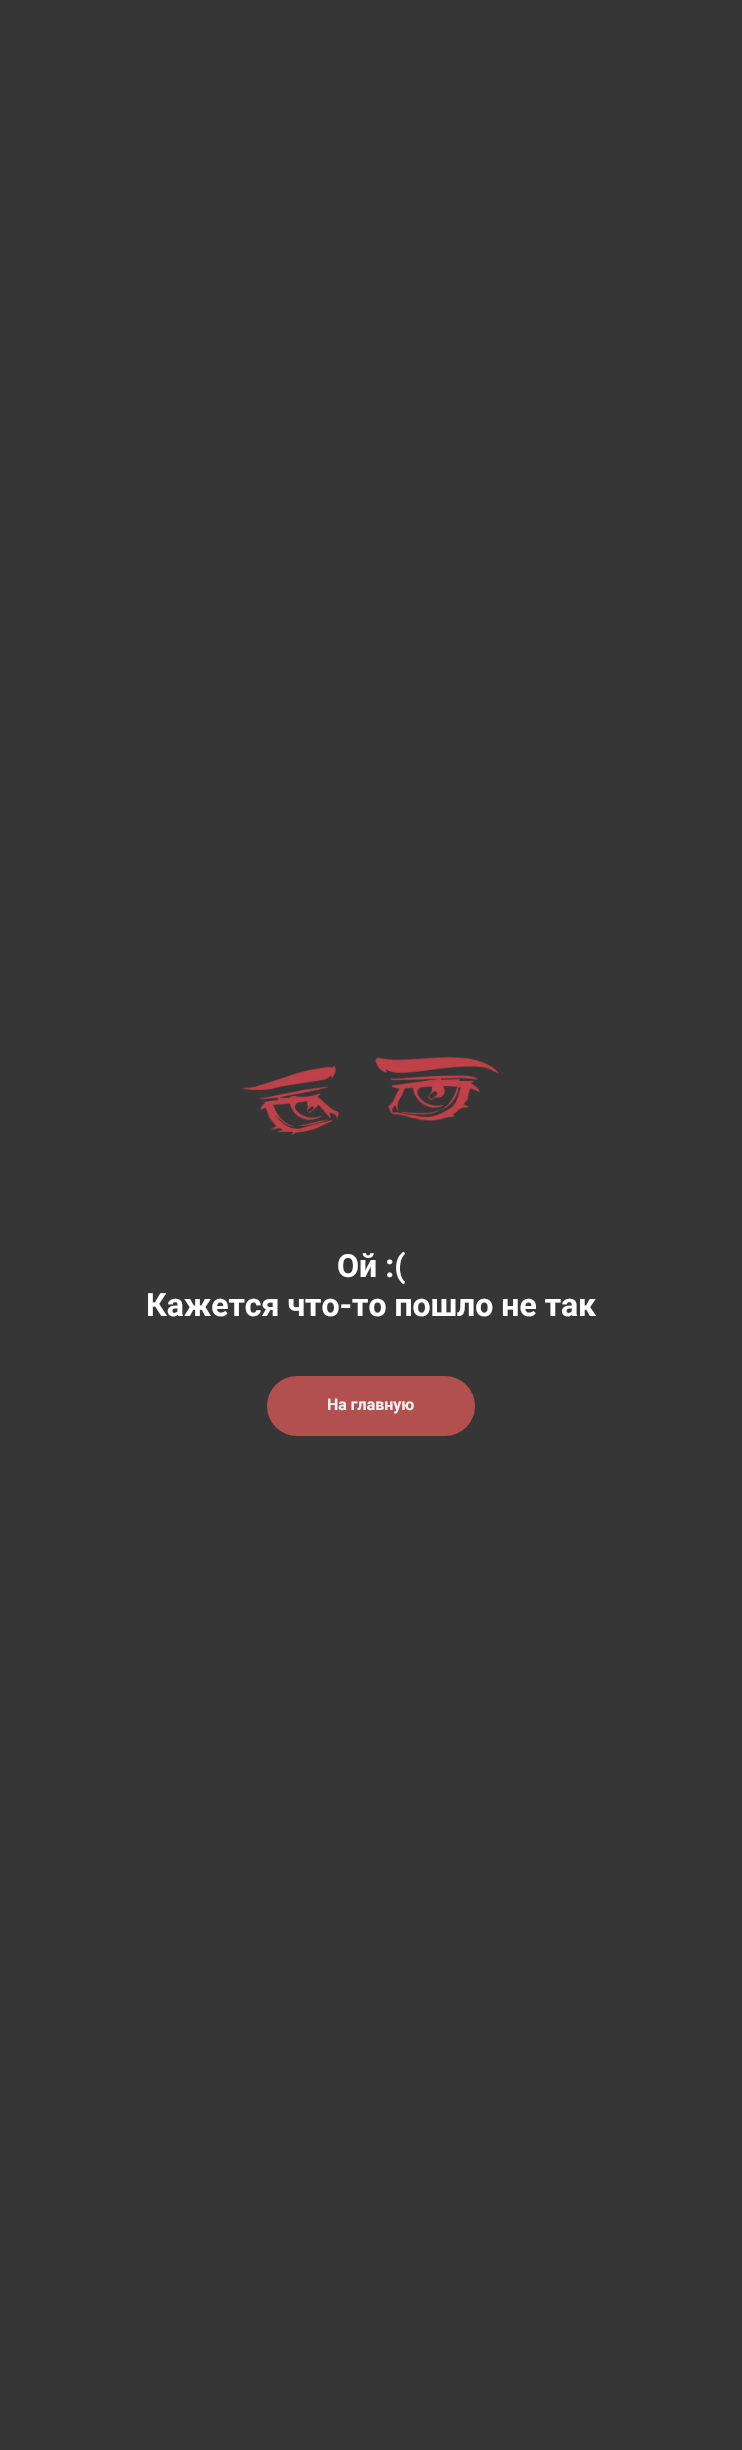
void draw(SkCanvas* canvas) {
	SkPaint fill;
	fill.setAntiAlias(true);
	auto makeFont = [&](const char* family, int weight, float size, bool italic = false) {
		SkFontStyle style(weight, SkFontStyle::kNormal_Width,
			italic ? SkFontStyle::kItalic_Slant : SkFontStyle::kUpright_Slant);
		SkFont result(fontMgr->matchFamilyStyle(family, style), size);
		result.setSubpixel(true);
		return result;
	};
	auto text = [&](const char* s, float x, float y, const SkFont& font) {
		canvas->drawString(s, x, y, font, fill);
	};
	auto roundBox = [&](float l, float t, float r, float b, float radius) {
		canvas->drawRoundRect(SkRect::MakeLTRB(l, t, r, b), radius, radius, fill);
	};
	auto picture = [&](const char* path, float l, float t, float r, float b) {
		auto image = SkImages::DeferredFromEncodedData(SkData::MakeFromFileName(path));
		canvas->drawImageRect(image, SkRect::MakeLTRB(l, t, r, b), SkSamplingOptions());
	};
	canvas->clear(0xFF363636);
	picture("image0.png", 242, 1056, 500, 1136);
	fill.setColor(0xFFB24F4F);
	roundBox(267, 1376, 475, 1436, 30);
	auto font1 = makeFont("Roboto", 700, 32);
	fill.setColor(0xFFFFFFFF);
	text("Ой :(", 337, 1277, font1);
	text("Кажется что-то пошло не так", 146, 1316, font1);
	auto font2 = makeFont("Roboto", 700, 16);
	fill.setColor(0xFFF0F0F0);
	text("На главную", 327, 1410, font2);
}
